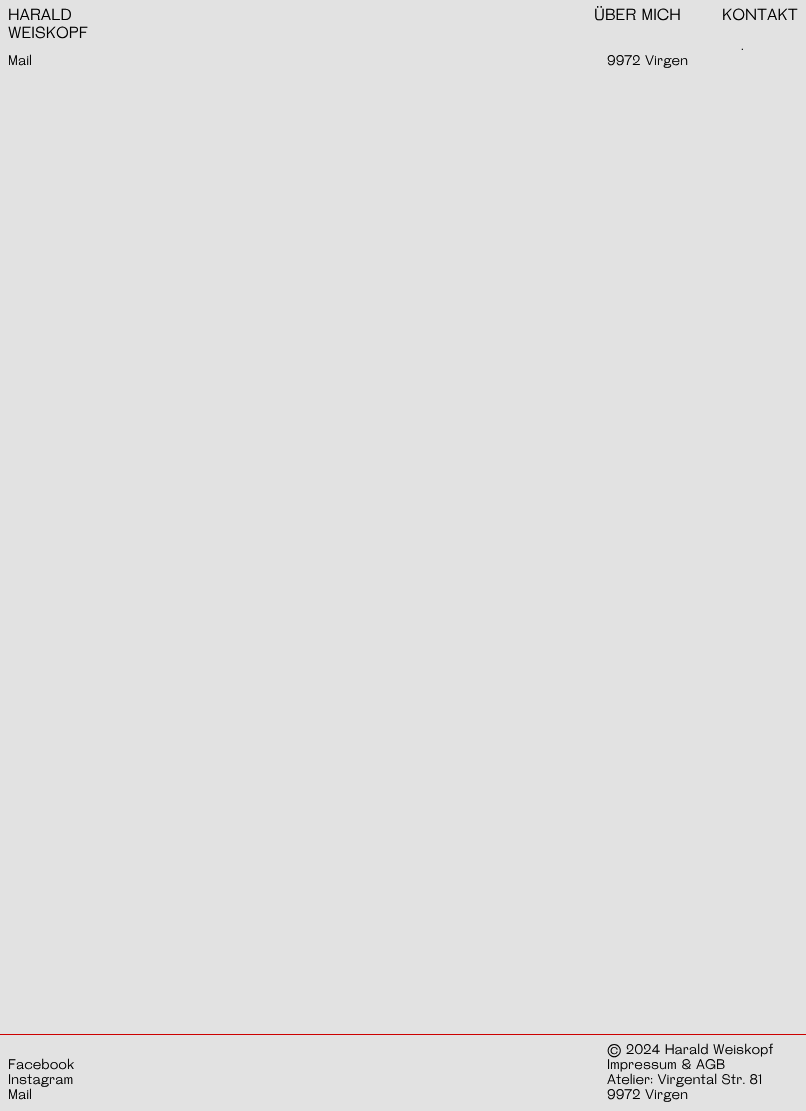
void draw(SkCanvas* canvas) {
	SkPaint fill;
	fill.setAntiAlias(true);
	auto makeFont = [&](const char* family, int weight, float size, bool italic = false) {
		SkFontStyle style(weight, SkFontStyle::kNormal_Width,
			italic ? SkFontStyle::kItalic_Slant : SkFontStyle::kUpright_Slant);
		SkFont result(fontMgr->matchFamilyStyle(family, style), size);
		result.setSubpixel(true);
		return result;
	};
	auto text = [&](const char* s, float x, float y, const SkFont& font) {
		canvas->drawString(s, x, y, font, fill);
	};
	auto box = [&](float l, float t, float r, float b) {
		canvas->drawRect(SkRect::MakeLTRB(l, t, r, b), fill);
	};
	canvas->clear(0xFFE2E2E2);
	fill.setColor(0xFFCC0000);
	box(0, 1034, 806, 1035);
	auto font1 = makeFont("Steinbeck", 400, 16);
	fill.setColor(0xFF000000);
	text("HARALD", 8, 20, font1);
	text("WEISKOPF", 8, 38, font1);
	text("ÜBER MICH", 594, 20, font1);
	text("KONTAKT", 722, 20, font1);
	auto font2 = makeFont("Steinbeck", 400, 13.75f);
	text("Mail", 8, 65, font2);
	text(".", 741, 50, font2);
	text("9972 Virgen", 607, 65, font2);
	text("Facebook", 8, 1069, font2);
	text("Instagram", 8, 1084, font2);
	text("Mail", 8, 1099, font2);
	text("© 2024 Harald Weiskopf", 607, 1054, font2);
	text("Impressum & AGB", 607, 1069, font2);
	text("Atelier: Virgental Str. 81", 607, 1084, font2);
	text("9972 Virgen", 607, 1099, font2);
}
